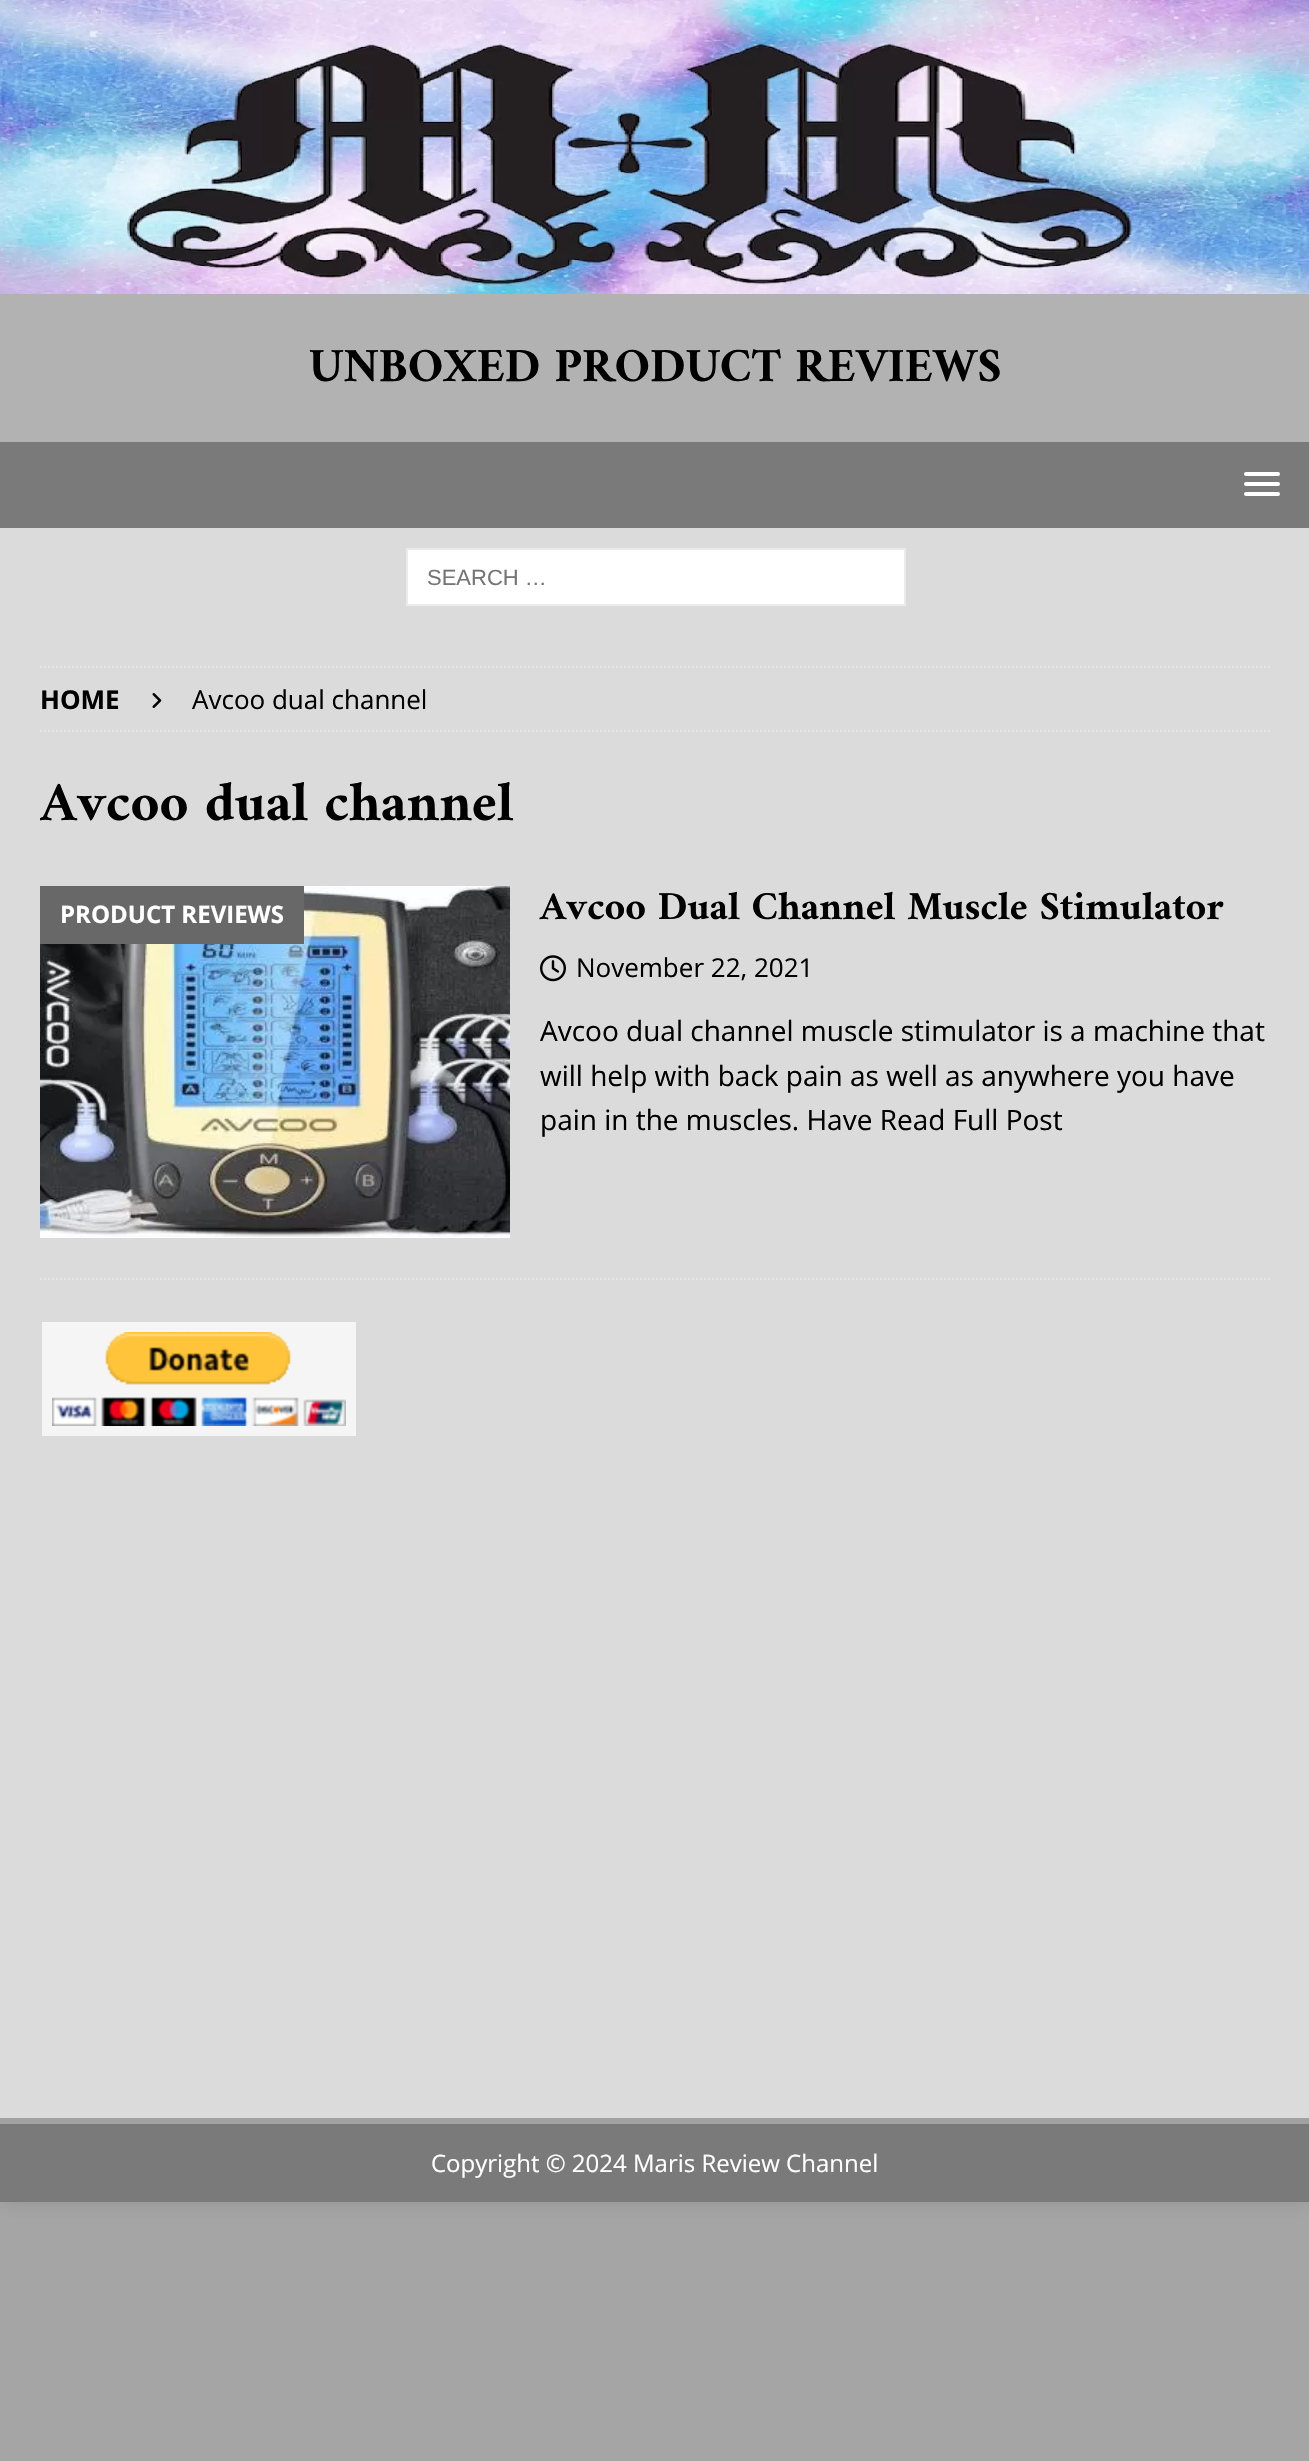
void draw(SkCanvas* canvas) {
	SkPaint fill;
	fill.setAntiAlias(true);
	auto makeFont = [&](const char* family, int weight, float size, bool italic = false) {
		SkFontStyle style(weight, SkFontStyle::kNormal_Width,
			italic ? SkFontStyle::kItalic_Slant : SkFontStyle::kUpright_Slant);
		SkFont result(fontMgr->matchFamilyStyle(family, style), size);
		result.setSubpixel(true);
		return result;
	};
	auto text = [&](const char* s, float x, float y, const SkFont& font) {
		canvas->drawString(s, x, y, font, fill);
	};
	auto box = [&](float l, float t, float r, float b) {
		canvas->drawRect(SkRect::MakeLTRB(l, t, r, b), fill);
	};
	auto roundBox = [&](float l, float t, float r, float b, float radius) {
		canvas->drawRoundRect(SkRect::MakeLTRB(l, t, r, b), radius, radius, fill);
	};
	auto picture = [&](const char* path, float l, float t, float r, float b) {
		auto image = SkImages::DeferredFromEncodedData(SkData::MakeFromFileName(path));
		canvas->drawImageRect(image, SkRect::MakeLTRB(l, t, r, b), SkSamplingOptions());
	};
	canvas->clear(0xFFA5A5A5);
	fill.setColor(0x2B323232);
	fill.setMaskFilter(SkMaskFilter::MakeBlur(kNormal_SkBlurStyle, 10));
	canvas->drawRect(SkRect::MakeLTRB(0, 0, 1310, 2202), fill);
	fill.setMaskFilter(nullptr);
	fill.setColor(0xFFB2B2B2);
	box(0, 294, 1309, 442);
	picture("image0.png", 0, 0, 1309, 294);
	fill.setColor(0xFF7A7A7A);
	box(0, 442, 1309, 528);
	fill.setColor(0xFFFFFFFF);
	roundBox(1244, 472, 1280, 476, 2);
	roundBox(1244, 482, 1280, 486, 2);
	roundBox(1244, 492, 1280, 496, 2);
	fill.setColor(0xFFDBDBDB);
	box(0, 528, 1309, 2118);
	fill.setColor(0xFFFFFFFF);
	canvas->drawRect(SkRect::MakeLTRB(407, 549, 905, 605), fill);
	fill.setStyle(SkPaint::kStroke_Style);
	fill.setStrokeWidth(2);
	fill.setColor(0xFFEBEBEB);
	canvas->drawRect(SkRect::MakeLTRB(407, 549, 905, 605), fill);
	fill.setColor(0xFFE6E6E6);
	fill.setPathEffect(SkDashPathEffect::Make({{2, 2}}, 0));
	canvas->drawPath(SkPathBuilder().moveTo(40, 667).lineTo(1270, 667).detach(), fill);
	fill.setPathEffect(nullptr);
	fill.setPathEffect(SkDashPathEffect::Make({{2, 2}}, 0));
	canvas->drawPath(SkPathBuilder().moveTo(40, 731).lineTo(1270, 731).detach(), fill);
	fill.setPathEffect(nullptr);
	picture("image1.png", 152, 693, 162, 708);
	fill.setPathEffect(SkDashPathEffect::Make({{2, 2}}, 0));
	canvas->drawPath(SkPathBuilder().moveTo(40, 1279).lineTo(1270, 1279).detach(), fill);
	fill.setPathEffect(nullptr);
	picture("image2.png", 40, 886, 510, 1238);
	fill.setStyle(SkPaint::kFill_Style);
	fill.setColor(0xFF686868);
	box(40, 886, 304, 944);
	picture("image3.png", 540, 955, 566, 982);
	fill.setColor(0xFFF5F5F5);
	box(42, 1322, 356, 1436);
	picture("image4.png", 52, 1332, 346, 1426);
	fill.setColor(0xFF7A7A7A);
	box(0, 2124, 1309, 2202);
	fill.setColor(0xFFA2A2A2);
	box(0, 2118, 1309, 2124);
	auto font1 = makeFont("Amiri", 700, 48);
	fill.setColor(0xFF000000);
	text("UNBOXED PRODUCT REVIEWS", 309, 381, font1);
	auto font2 = makeFont("Liberation Sans", 400, 22);
	fill.setColor(0xFF757575);
	text("SEARCH …", 427, 585, font2);
	auto font3 = makeFont("Open Sans", 700, 26);
	fill.setColor(0xFF000000);
	text("HOME", 40, 709, font3);
	auto font4 = makeFont("Open Sans", 400, 26);
	text("Avcoo dual channel", 192, 709, font4);
	canvas->save();
	canvas->clipRect(SkRect::MakeLTRB(40, 666, 1270, 1280));
	auto font5 = makeFont("Amiri", 700, 56);
	text("Avcoo dual channel", 40, 820, font5);
	canvas->restore();
	auto font6 = makeFont("Open Sans", 700, 24);
	fill.setColor(0xFFFFFFFF);
	text("PRODUCT REVIEWS", 60, 923, font6);
	auto font7 = makeFont("Amiri", 700, 40);
	fill.setColor(0xFF000000);
	text("Avcoo Dual Channel Muscle Stimulator", 540, 919, font7);
	text("November 22, 2021", 576, 977, font4);
	auto font8 = makeFont("Open Sans", 400, 28);
	text("Avcoo dual channel muscle stimulator is a machine that", 540, 1041, font8);
	text("will help with back pain as well as anywhere you have", 540, 1086, font8);
	text("pain in the muscles. Have Read Full Post", 540, 1130, font8);
	auto font9 = makeFont("Open Sans", 400, 24);
	fill.setColor(0xFFFFFFFF);
	text("Copyright © 2024 Maris Review Channel", 431, 2172, font9);
}
